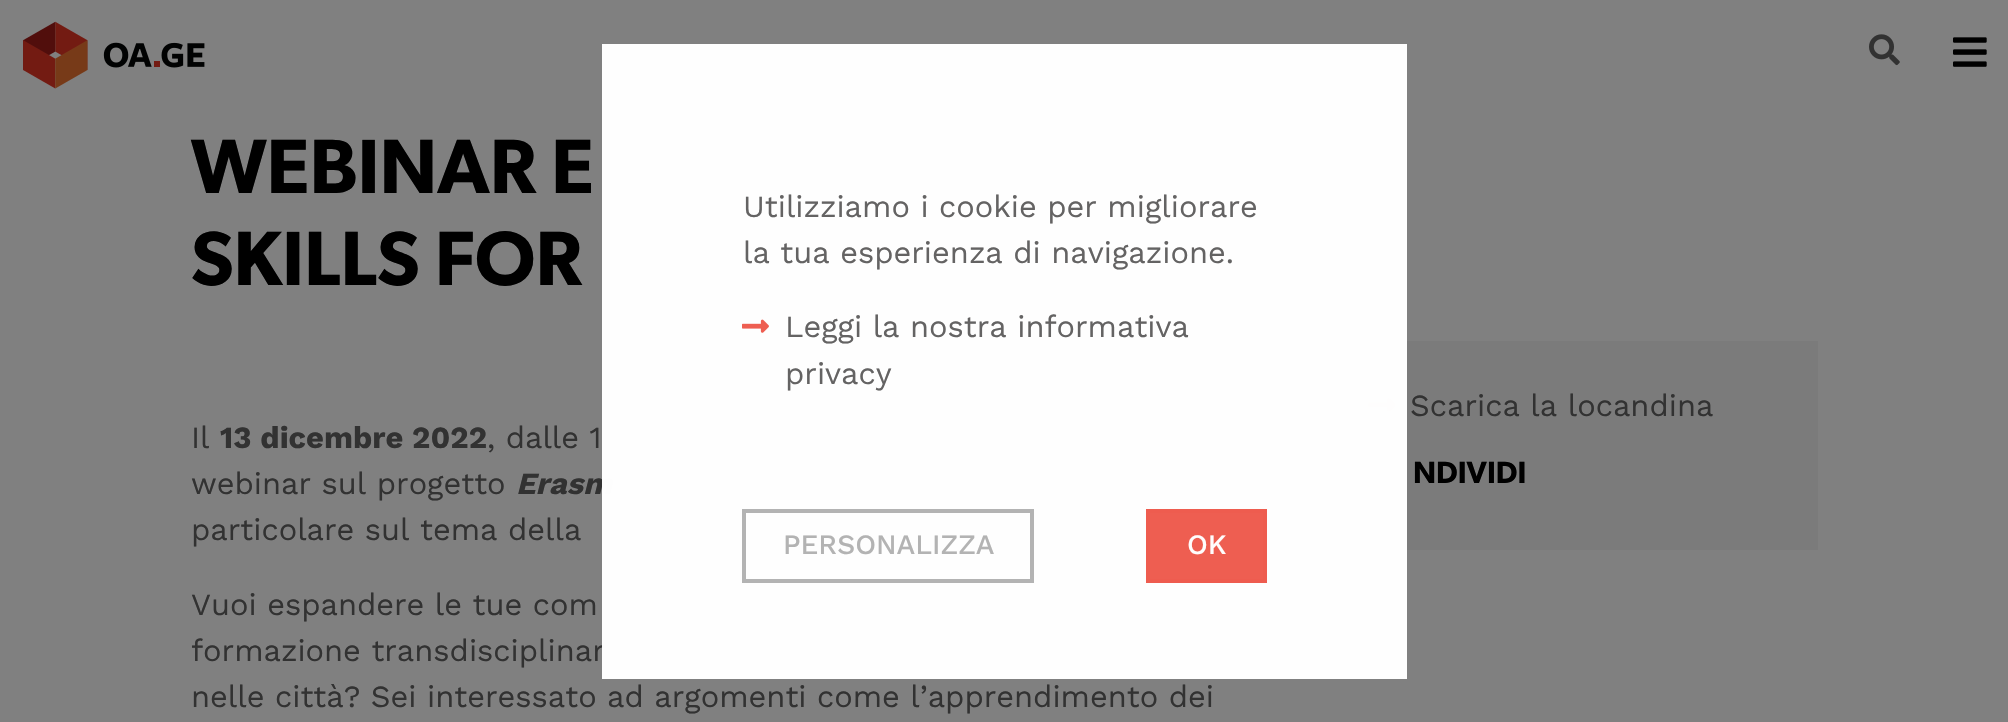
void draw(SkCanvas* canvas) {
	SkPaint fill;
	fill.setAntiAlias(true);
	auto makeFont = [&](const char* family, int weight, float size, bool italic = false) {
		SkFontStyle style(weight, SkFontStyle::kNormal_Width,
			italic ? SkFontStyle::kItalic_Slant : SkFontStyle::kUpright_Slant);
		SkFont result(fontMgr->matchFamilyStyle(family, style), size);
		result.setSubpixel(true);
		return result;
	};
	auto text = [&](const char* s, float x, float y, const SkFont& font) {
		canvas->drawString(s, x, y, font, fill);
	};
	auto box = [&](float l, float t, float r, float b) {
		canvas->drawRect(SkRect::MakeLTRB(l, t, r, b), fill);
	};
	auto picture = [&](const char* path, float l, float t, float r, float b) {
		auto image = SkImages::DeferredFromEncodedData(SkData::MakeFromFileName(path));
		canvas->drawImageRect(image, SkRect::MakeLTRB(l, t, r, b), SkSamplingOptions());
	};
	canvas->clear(0xFF808080);
	picture("image0.png", 23, 21, 205, 89);
	picture("image1.png", 1869, 34, 1900, 66);
	picture("image2.png", 1953, 37, 1987, 67);
	fill.setColor(0xFF7B7B7B);
	box(1327, 341, 1818, 550);
	picture("image3.png", 1368, 398, 1396, 412);
	auto font1 = makeFont("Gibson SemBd", 600, 77);
	fill.setColor(0xFF000000);
	text("WEBINAR E", 191, 193, font1);
	text("SKILLS FOR", 191, 285, font1);
	auto font2 = makeFont("Work Sans", 400, 30.8f);
	fill.setColor(0xFF323232);
	text("Il", 191, 448, font2);
	auto font3 = makeFont("Work Sans", 700, 30.8f);
	text("13 dicembre 2022", 220, 448, font3);
	text(", dalle 1", 487, 448, font2);
	text("webinar sul progetto", 191, 494, font2);
	auto font4 = makeFont("Work Sans", 700, 30.8f, true);
	text("Erasm", 516, 494, font4);
	text("particolare sul tema della", 191, 540, font2);
	text("Vuoi espandere le tue com", 191, 615, font2);
	text("formazione transdisciplinar", 191, 661, font2);
	text("nelle città? Sei interessato ad argomenti come l’apprendimento dei", 191, 707, font2);
	text("Scarica la locandina", 1410, 416, font2);
	auto font5 = makeFont("Gibson SemBd", 600, 30.8f);
	fill.setColor(0xFF000000);
	text("NDIVIDI", 1413, 483, font5);
	fill.setColor(0xFCFFFFFF);
	box(602, 44, 1407, 679);
	fill.setColor(0xFF646363);
	text("Utilizziamo i cookie per migliorare", 743, 217, font2);
	text("la tua esperienza di navigazione.", 743, 263, font2);
	picture("image4.png", 742, 319, 769, 333);
	text("Leggi la nostra informativa", 785, 337, font2);
	text("privacy", 785, 384, font2);
	fill.setStyle(SkPaint::kStroke_Style);
	fill.setStrokeWidth(4);
	fill.setColor(0xFFB3B3B3);
	canvas->drawRect(SkRect::MakeLTRB(744, 511, 1032, 581), fill);
	auto font6 = makeFont("Work Sans", 500, 28);
	fill.setStyle(SkPaint::kFill_Style);
	text("PERSONALIZZA", 783, 554, font6);
	fill.setColor(0xFFEE5E51);
	canvas->drawRect(SkRect::MakeLTRB(1148, 511, 1265, 581), fill);
	fill.setStyle(SkPaint::kStroke_Style);
	fill.setColor(0xFFEE5C4F);
	canvas->drawRect(SkRect::MakeLTRB(1148, 511, 1265, 581), fill);
	fill.setStyle(SkPaint::kFill_Style);
	fill.setColor(0xFFFFFDFD);
	text("OK", 1187, 554, font6);
}
